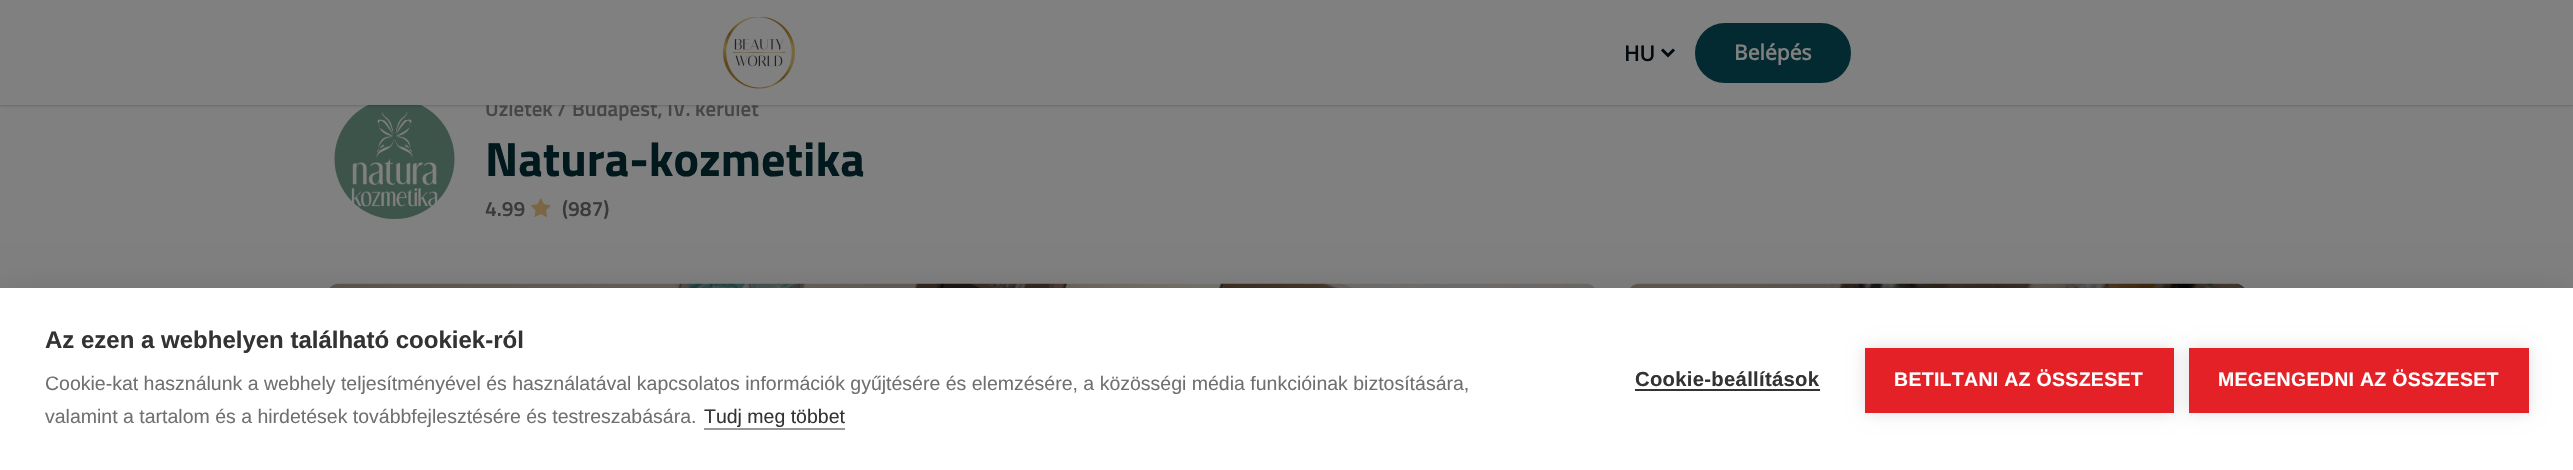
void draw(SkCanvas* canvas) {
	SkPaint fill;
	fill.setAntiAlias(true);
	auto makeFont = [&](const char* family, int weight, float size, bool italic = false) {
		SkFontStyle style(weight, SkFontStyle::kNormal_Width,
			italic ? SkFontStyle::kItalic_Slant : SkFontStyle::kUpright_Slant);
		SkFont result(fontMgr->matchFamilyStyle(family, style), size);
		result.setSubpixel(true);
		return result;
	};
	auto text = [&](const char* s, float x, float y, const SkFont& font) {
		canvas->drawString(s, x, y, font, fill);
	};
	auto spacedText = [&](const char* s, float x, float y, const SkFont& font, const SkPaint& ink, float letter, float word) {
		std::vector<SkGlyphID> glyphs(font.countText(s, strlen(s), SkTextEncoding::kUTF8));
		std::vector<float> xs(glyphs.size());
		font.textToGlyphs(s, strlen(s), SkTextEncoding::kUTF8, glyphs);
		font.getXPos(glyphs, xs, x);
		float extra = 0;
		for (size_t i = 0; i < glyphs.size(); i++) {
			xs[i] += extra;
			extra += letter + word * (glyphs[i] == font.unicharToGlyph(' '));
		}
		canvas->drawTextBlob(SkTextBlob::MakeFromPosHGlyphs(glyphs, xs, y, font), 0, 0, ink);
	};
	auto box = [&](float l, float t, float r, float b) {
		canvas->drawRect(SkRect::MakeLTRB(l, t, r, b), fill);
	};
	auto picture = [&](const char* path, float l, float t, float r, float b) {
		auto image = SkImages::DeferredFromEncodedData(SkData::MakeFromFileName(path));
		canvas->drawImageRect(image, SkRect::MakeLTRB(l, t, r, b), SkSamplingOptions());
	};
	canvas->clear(0xFF808080);
	picture("image1.png", 334, 105, 455, 219);
	fill.setColor(0x54000000);
	fill.setMaskFilter(SkMaskFilter::MakeBlur(kNormal_SkBlurStyle, 1.5f));
	canvas->drawRect(SkRect::MakeLTRB(0, 0, 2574, 105), fill);
	fill.setMaskFilter(nullptr);
	picture("image2.png", 531, 198, 551, 217);
	picture("image3.png", 329, 283, 1595, 288);
	picture("image4.png", 1630, 283, 2245, 288);
	fill.setColor(0x1A000000);
	fill.setMaskFilter(SkMaskFilter::MakeBlur(kNormal_SkBlurStyle, 15));
	canvas->drawRect(SkRect::MakeLTRB(0, 288, 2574, 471), fill);
	fill.setMaskFilter(nullptr);
	fill.setColor(0xFFFFFFFF);
	box(0, 288, 2573, 470);
	fill.setColor(0xFF999999);
	box(704, 428, 845, 430);
	fill.setColor(0xFF333333);
	box(1635, 389, 1820, 391);
	fill.setColor(0x1F000000);
	fill.setMaskFilter(SkMaskFilter::MakeBlur(kNormal_SkBlurStyle, 7.5f));
	canvas->drawRect(SkRect::MakeLTRB(1865, 348, 2174, 413), fill);
	fill.setMaskFilter(nullptr);
	fill.setColor(0xFFE42127);
	box(1865, 348, 2174, 413);
	fill.setColor(0x1F000000);
	fill.setMaskFilter(SkMaskFilter::MakeBlur(kNormal_SkBlurStyle, 7.5f));
	canvas->drawRect(SkRect::MakeLTRB(2189, 348, 2529, 413), fill);
	fill.setMaskFilter(nullptr);
	fill.setColor(0xFFE42127);
	box(2189, 348, 2529, 413);
	auto font1 = makeFont("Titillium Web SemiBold", 600, 21);
	fill.setColor(0xFF464646);
	text("Üzletek /", 485, 116, font1);
	text("Budapest, IV. kerület", 572, 116, font1);
	fill.setColor(0xFF808080);
	box(0, 0, 2573, 105);
	fill.setColor(0xFF022A30);
	canvas->drawRoundRect(SkRect::MakeLTRB(1696.5f, 24.5f, 1849.5f, 81.5f), 28.5f, 28.5f, fill);
	fill.setStyle(SkPaint::kStroke_Style);
	fill.setStrokeWidth(3);
	canvas->drawRoundRect(SkRect::MakeLTRB(1696.5f, 24.5f, 1849.5f, 81.5f), 28.5f, 28.5f, fill);
	auto font2 = makeFont("Noto Sans", 700, 21);
	fill.setStyle(SkPaint::kFill_Style);
	fill.setColor(0xFF808080);
	text("Belépés", 1734, 60, font2);
	fill.setColor(0xFF02090F);
	text("HU", 1624, 61, font2);
	fill.setStyle(SkPaint::kStroke_Style);
	canvas->drawPath(SkPathBuilder().moveTo(1662, 49.5f).lineTo(1668, 55.5f).lineTo(1674, 49.5f).detach(), fill);
	picture("image0.png", 723, 17, 795, 89);
	auto font3 = makeFont("Titillium Web", 700, 48);
	fill.setStyle(SkPaint::kFill_Style);
	fill.setColor(0xFF01191D);
	text("Natura-kozmetika", 485, 176, font3);
	fill.setColor(0xFF3A3A3A);
	text("4.99", 485, 216, font1);
	text("(987)", 562, 216, font1);
	auto font4 = makeFont("Liberation Sans", 700, 24);
	fill.setColor(0xFF333333);
	text("Az ezen a webhelyen található cookiek-ról", 45, 348, font4);
	auto font5 = makeFont("Liberation Sans", 400, 19.5f);
	fill.setColor(0xFF707070);
	text("Cookie-kat használunk a webhely teljesítményével és használatával kapcsolatos információk gyűjtésére és elemzésére, a közösségi média funkcióinak biztosítására,", 45, 390, font5);
	text("valamint a tartalom és a hirdetések továbbfejlesztésére és testreszabására.", 45, 423, font5);
	fill.setColor(0xFF333333);
	text("Tudj meg többet", 704, 423, font5);
	auto font6 = makeFont("Liberation Sans", 700, 20.25f);
	spacedText("Cookie-beállítások", 1635, 386, font6, fill, 0.3f, 0);
	auto font7 = makeFont("Liberation Sans", 700, 19.5f);
	fill.setColor(0xFFFFFFFF);
	spacedText("BETILTANI AZ ÖSSZESET", 1894, 386, font7, fill, 0.3f, 0);
	spacedText("MEGENGEDNI AZ ÖSSZESET", 2218, 386, font7, fill, 0.3f, 0);
}
